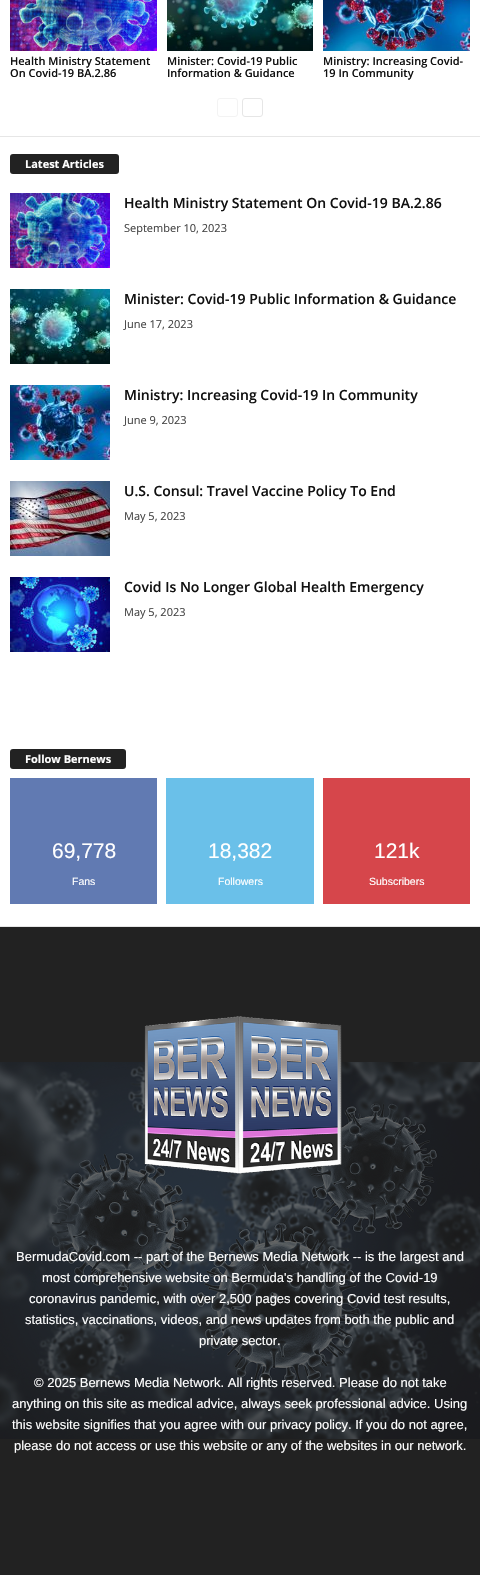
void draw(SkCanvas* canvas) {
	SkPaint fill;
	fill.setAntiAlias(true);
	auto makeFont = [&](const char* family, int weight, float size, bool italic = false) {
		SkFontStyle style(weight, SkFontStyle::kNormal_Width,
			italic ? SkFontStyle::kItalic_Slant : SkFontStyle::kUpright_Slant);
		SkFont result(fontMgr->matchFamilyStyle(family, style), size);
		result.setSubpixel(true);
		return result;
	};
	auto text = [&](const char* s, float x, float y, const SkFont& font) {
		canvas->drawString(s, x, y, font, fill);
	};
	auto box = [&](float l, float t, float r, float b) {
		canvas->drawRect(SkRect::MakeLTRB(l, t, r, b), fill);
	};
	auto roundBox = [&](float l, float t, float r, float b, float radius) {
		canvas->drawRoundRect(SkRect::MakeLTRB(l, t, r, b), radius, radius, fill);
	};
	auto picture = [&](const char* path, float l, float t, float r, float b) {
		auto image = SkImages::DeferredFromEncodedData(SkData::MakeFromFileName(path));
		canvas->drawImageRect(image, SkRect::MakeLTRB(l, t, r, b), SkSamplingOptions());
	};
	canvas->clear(0xFF222222);
	fill.setColor(0xFFFFFFFF);
	box(0, 0, 480, 926);
	fill.setColor(0xFFE6E6E6);
	box(0, 926, 480, 927);
	picture("image0.png", 10, 0, 157, 51);
	picture("image1.png", 167, 0, 313, 51);
	picture("image2.png", 323, 0, 470, 51);
	fill.setStyle(SkPaint::kStroke_Style);
	fill.setStrokeWidth(1);
	fill.setColor(0xFFF3F3F3);
	canvas->drawRoundRect(SkRect::MakeLTRB(217.5f, 98.5f, 237.5f, 116.5f), 2.5f, 2.5f, fill);
	fill.setColor(0xFFE6E6E6);
	canvas->drawRoundRect(SkRect::MakeLTRB(242.5f, 98.5f, 262.5f, 116.5f), 2.5f, 2.5f, fill);
	fill.setStyle(SkPaint::kFill_Style);
	box(0, 136, 480, 137);
	fill.setColor(0xFF222222);
	roundBox(10, 154, 119, 174, 3);
	picture("image3.png", 10, 193, 110, 268);
	picture("image4.png", 10, 289, 110, 364);
	picture("image5.png", 10, 385, 110, 460);
	picture("image6.png", 10, 481, 110, 556);
	picture("image7.png", 10, 577, 110, 652);
	roundBox(10, 749, 126, 769, 3);
	fill.setColor(0xFF617AB2);
	box(10, 778, 157, 904);
	fill.setColor(0xFF6AC0E9);
	box(166, 778, 314, 904);
	fill.setColor(0xFFD6464B);
	box(323, 778, 470, 904);
	picture("image8.png", 0, 1062, 480, 1439);
	picture("image9.png", 144, 1016, 342, 1174);
	auto font1 = makeFont("Open Sans", 600, 11);
	fill.setColor(0xFF111111);
	text("Health Ministry Statement", 10, 65, font1);
	text("On Covid-19 BA.2.86", 10, 77, font1);
	text("Minister: Covid-19 Public", 167, 65, font1);
	text("Information & Guidance", 167, 77, font1);
	text("Ministry: Increasing Covid-", 323, 65, font1);
	text("19 In Community", 323, 77, font1);
	auto font2 = makeFont("Open Sans", 700, 11);
	fill.setColor(0xFFFFFFFF);
	text("Latest Articles", 25, 168, font2);
	auto font3 = makeFont("Open Sans", 600, 14);
	fill.setColor(0xFF111111);
	text("Health Ministry Statement On Covid-19 BA.2.86", 124, 208, font3);
	auto font4 = makeFont("Open Sans", 400, 11);
	fill.setColor(0xFF444444);
	text("September 10, 2023", 124, 232, font4);
	fill.setColor(0xFF111111);
	text("Minister: Covid-19 Public Information & Guidance", 124, 304, font3);
	fill.setColor(0xFF444444);
	text("June 17, 2023", 124, 328, font4);
	fill.setColor(0xFF111111);
	text("Ministry: Increasing Covid-19 In Community", 124, 400, font3);
	fill.setColor(0xFF444444);
	text("June 9, 2023", 124, 424, font4);
	fill.setColor(0xFF111111);
	text("U.S. Consul: Travel Vaccine Policy To End", 124, 496, font3);
	fill.setColor(0xFF444444);
	text("May 5, 2023", 124, 520, font4);
	fill.setColor(0xFF111111);
	text("Covid Is No Longer Global Health Emergency", 124, 592, font3);
	fill.setColor(0xFF444444);
	text("May 5, 2023", 124, 616, font4);
	fill.setColor(0xFFFFFFFF);
	text("Follow Bernews", 25, 763, font2);
	auto font5 = makeFont("Liberation Sans", 400, 21);
	text("69,778", 52, 858, font5);
	auto font6 = makeFont("Liberation Sans", 400, 10.5f);
	text("Fans", 72, 885, font6);
	text("18,382", 208, 858, font5);
	text("Followers", 218, 885, font6);
	text("121k", 374, 858, font5);
	text("Subscribers", 369, 885, font6);
	auto font7 = makeFont("Liberation Sans", 400, 13);
	text("BermudaCovid.com -- part of the Bernews Media Network -- is the largest and", 16, 1261, font7);
	text("most comprehensive website on Bermuda's handling of the Covid-19", 42, 1282, font7);
	text("coronavirus pandemic, with over 2,500 pages covering Covid test results,", 29, 1303, font7);
	text("statistics, vaccinations, videos, and news updates from both the public and", 25, 1324, font7);
	text("private sector.", 199, 1345, font7);
	text("© 2025 Bernews Media Network. All rights reserved. Please do not take", 34, 1387, font7);
	text("anything on this site as medical advice, always seek professional advice. Using", 12, 1408, font7);
	text("this website signifies that you agree with our privacy policy. If you do not agree,", 12, 1429, font7);
	text("please do not access or use this website or any of the websites in our network.", 14, 1450, font7);
}
